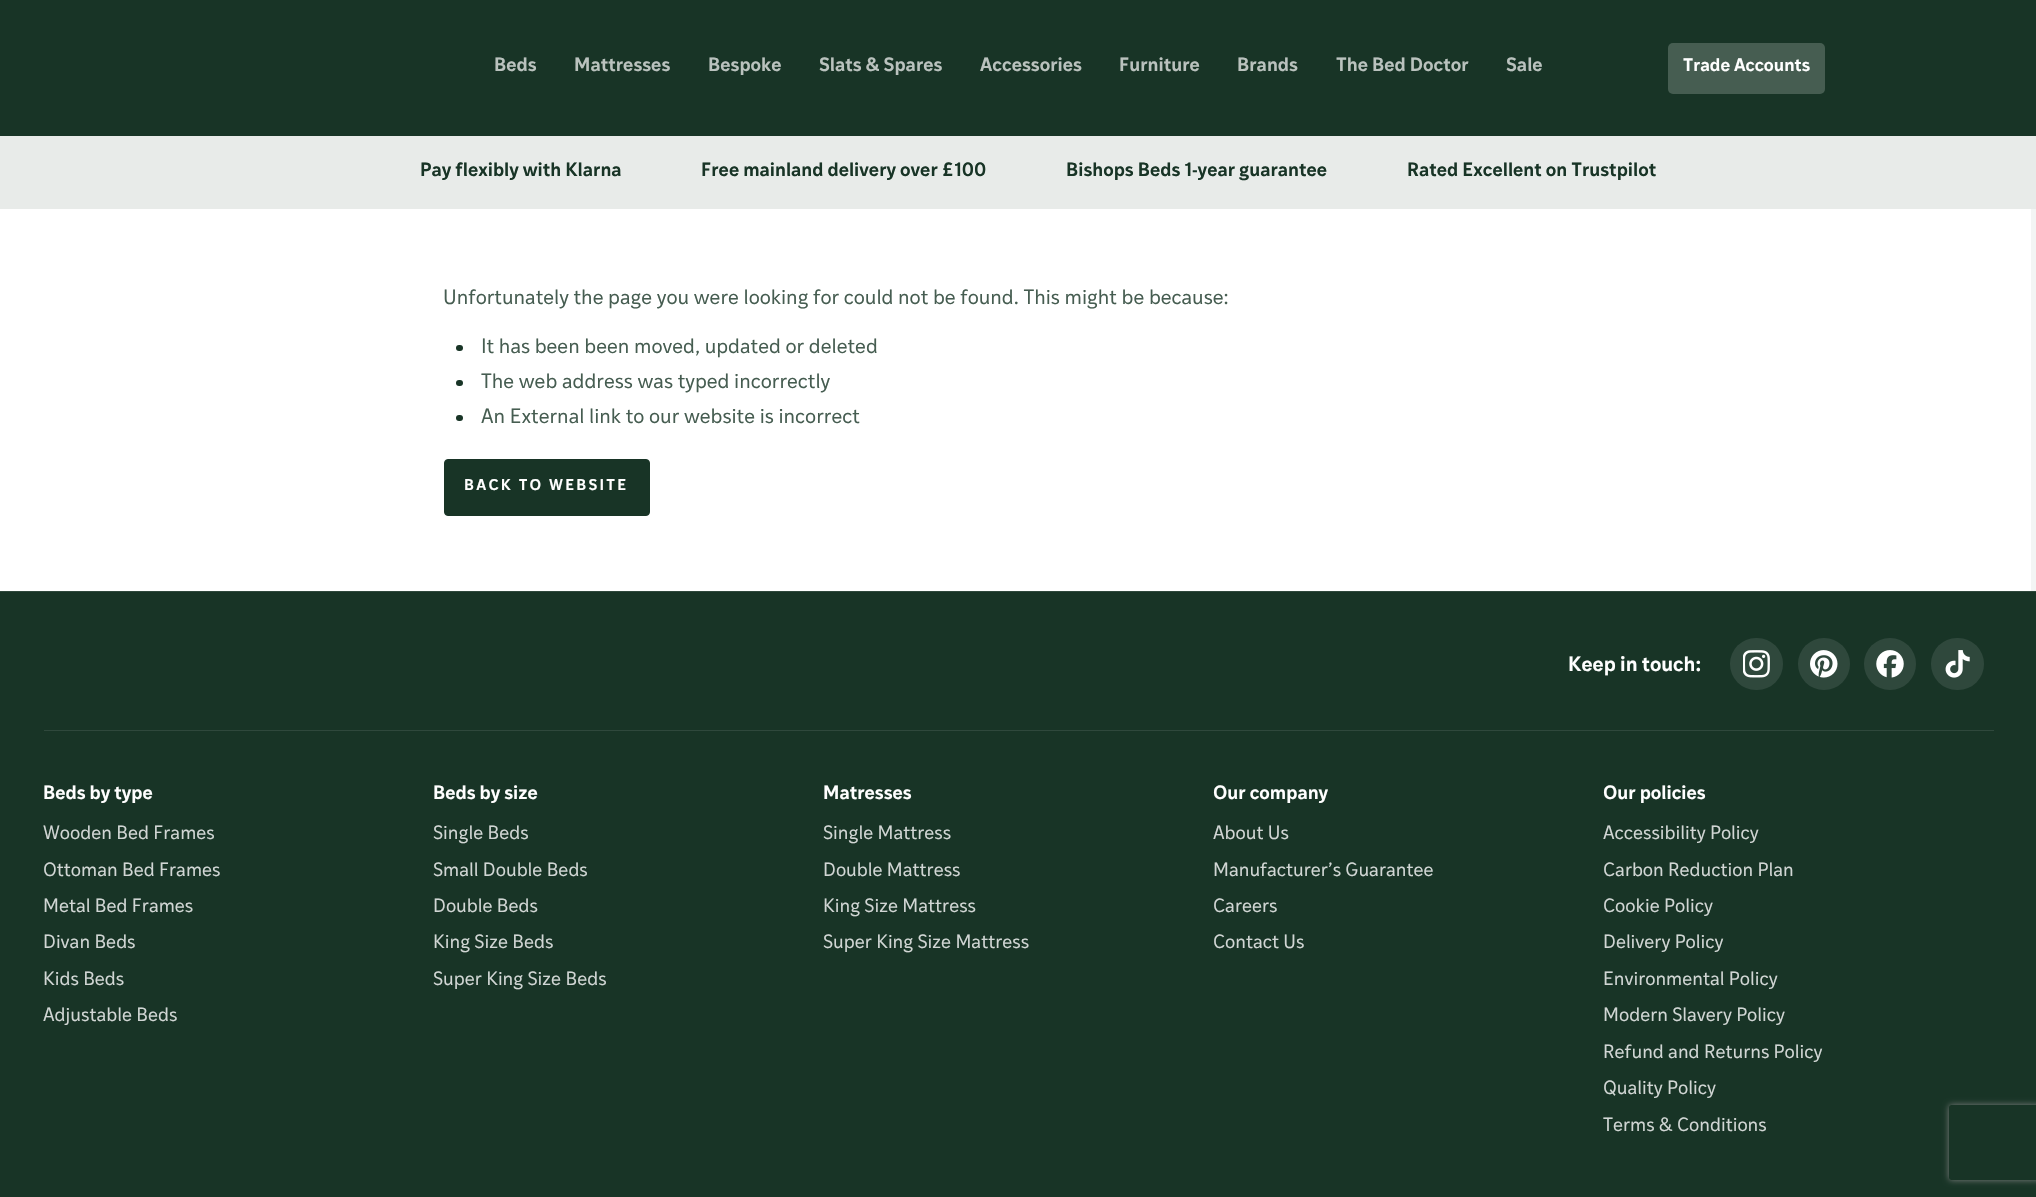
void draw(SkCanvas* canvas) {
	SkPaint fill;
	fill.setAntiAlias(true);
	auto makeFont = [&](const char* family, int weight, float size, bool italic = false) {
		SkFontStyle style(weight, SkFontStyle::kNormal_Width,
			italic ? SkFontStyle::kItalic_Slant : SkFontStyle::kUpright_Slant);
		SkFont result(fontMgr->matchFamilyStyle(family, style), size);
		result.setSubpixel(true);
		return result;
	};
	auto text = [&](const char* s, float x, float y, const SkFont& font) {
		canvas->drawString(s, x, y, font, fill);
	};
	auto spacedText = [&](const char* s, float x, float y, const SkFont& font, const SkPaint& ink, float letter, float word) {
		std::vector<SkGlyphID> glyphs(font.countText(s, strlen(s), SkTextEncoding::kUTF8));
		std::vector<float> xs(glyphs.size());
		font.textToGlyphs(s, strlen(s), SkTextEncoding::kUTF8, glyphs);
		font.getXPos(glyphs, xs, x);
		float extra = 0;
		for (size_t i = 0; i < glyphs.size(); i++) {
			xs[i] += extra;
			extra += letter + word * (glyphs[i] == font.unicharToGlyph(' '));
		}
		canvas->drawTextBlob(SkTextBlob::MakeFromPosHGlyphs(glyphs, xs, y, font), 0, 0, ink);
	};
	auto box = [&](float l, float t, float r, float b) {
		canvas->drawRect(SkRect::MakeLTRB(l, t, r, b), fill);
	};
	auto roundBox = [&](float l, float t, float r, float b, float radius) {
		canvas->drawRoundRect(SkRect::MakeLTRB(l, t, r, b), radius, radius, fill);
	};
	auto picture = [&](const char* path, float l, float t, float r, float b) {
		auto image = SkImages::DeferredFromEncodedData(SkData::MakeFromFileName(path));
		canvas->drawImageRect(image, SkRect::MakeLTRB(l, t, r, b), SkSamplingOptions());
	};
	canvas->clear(0xFFFFFFFF);
	fill.setColor(0xFF183426);
	box(0, 0, 2036, 136);
	fill.setColor(0xFF465D51);
	roundBox(1668, 43, 1825, 94, 5);
	fill.setColor(0xFF183426);
	box(0, 592, 2036, 1197);
	fill.setColor(0xFF2F483C);
	box(0, 591, 2036, 592);
	canvas->save();
	canvas->clipPath(SkPathBuilder(SkPathFillType::kEvenOdd).moveTo(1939, 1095).lineTo(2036, 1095).lineTo(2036, 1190).lineTo(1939, 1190).close().moveTo(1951.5f, 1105).lineTo(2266.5f, 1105).cubicTo(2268, 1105, 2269, 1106, 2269, 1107.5f).lineTo(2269, 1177.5f).cubicTo(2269, 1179, 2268, 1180, 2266.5f, 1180).lineTo(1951.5f, 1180).cubicTo(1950, 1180, 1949, 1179, 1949, 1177.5f).lineTo(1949, 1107.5f).cubicTo(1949, 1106, 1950, 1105, 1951.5f, 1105).close().detach(), true);
	fill.setColor(0xFF808080);
	fill.setMaskFilter(SkMaskFilter::MakeBlur(kNormal_SkBlurStyle, 3));
	canvas->drawRoundRect(SkRect::MakeLTRB(1949, 1105, 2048, 1180), 2.5f, 2.5f, fill);
	fill.setMaskFilter(nullptr);
	canvas->restore();
	fill.setColor(0x0D183426);
	canvas->drawPath(SkPathBuilder().moveTo(2031, 200).lineTo(2031, 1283).lineTo(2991, 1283).lineTo(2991, 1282).lineTo(2036, 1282).lineTo(2036, 200).close().detach(), fill);
	fill.setColor(0xFFE8EBE9);
	box(0, 136, 2036, 209);
	fill.setColor(0xFF183426);
	roundBox(456, 345, 463, 351, 3);
	roundBox(456, 380, 463, 386, 3);
	roundBox(456, 415, 463, 421, 3);
	canvas->drawRoundRect(SkRect::MakeLTRB(444.5f, 459.5f, 649.5f, 515.5f), 3.5f, 3.5f, fill);
	fill.setStyle(SkPaint::kStroke_Style);
	fill.setStrokeWidth(1);
	canvas->drawRoundRect(SkRect::MakeLTRB(444.5f, 459.5f, 649.5f, 515.5f), 3.5f, 3.5f, fill);
	fill.setStyle(SkPaint::kFill_Style);
	fill.setColor(0xFF2F483C);
	roundBox(1730, 638, 1783, 690, 26);
	picture("image0.png", 1743, 650, 1770, 678);
	canvas->drawCircle(1824, 664, 26, fill);
	picture("image1.png", 1810, 650, 1838, 678);
	canvas->drawCircle(1890, 664, 26, fill);
	picture("image2.png", 1876, 650, 1904, 678);
	roundBox(1931, 638, 1984, 690, 26);
	picture("image3.png", 1945, 650, 1970, 678);
	box(44, 730, 1994, 731);
	auto font1 = makeFont("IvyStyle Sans", 600, 18.5f);
	fill.setColor(0xFFBAC2BE);
	text("Beds", 494, 71, font1);
	text("Mattresses", 574, 71, font1);
	text("Bespoke", 708, 71, font1);
	text("Slats & Spares", 819, 71, font1);
	text("Accessories", 980, 71, font1);
	text("Furniture", 1119, 71, font1);
	text("Brands", 1237, 71, font1);
	text("The Bed Doctor", 1336, 71, font1);
	text("Sale", 1506, 71, font1);
	auto font2 = makeFont("IvyStyle Sans", 600, 17.5f);
	fill.setColor(0xFFFFFFFF);
	text("Trade Accounts", 1683, 71, font2);
	fill.setColor(0xFF183426);
	text("Pay flexibly with Klarna", 420, 176, font1);
	text("Free mainland delivery over £100", 701, 176, font1);
	text("Bishops Beds 1-year guarantee", 1066, 176, font1);
	text("Rated Excellent on Trustpilot", 1407, 176, font1);
	auto font3 = makeFont("IvyStyle Sans", 400, 20);
	fill.setColor(0xFF465D51);
	text("Unfortunately the page you were looking for could not be found. This might be because:", 443, 304, font3);
	text("It has been been moved, updated or deleted", 481, 353, font3);
	text("The web address was typed incorrectly", 481, 388, font3);
	text("An External link to our website is incorrect", 481, 423, font3);
	auto font4 = makeFont("IvyStyle Sans", 600, 15);
	fill.setColor(0xFFFFFFFF);
	spacedText("BACK TO WEBSITE", 464, 490, font4, fill, 2.25f, 0);
	auto font5 = makeFont("IvyStyle Sans", 600, 20);
	text("Keep in touch:", 1568, 671, font5);
	text("Beds by type", 43, 799, font1);
	auto font6 = makeFont("IvyStyle Sans", 400, 18.5f);
	fill.setColor(0xFFD1D6D4);
	text("Wooden Bed Frames", 43, 839, font6);
	text("Ottoman Bed Frames", 43, 876, font6);
	text("Metal Bed Frames", 43, 912, font6);
	text("Divan Beds", 43, 948, font6);
	text("Kids Beds", 43, 985, font6);
	text("Adjustable Beds", 43, 1021, font6);
	fill.setColor(0xFFFFFFFF);
	text("Beds by size", 433, 799, font1);
	fill.setColor(0xFFD1D6D4);
	text("Single Beds", 433, 839, font6);
	text("Small Double Beds", 433, 876, font6);
	text("Double Beds", 433, 912, font6);
	text("King Size Beds", 433, 948, font6);
	text("Super King Size Beds", 433, 985, font6);
	fill.setColor(0xFFFFFFFF);
	text("Matresses", 823, 799, font1);
	fill.setColor(0xFFD1D6D4);
	text("Single Mattress", 823, 839, font6);
	text("Double Mattress", 823, 876, font6);
	text("King Size Mattress", 823, 912, font6);
	text("Super King Size Mattress", 823, 948, font6);
	fill.setColor(0xFFFFFFFF);
	text("Our company", 1213, 799, font1);
	fill.setColor(0xFFD1D6D4);
	text("About Us", 1213, 839, font6);
	text("Manufacturer’s Guarantee", 1213, 876, font6);
	text("Careers", 1213, 912, font6);
	text("Contact Us", 1213, 948, font6);
	fill.setColor(0xFFFFFFFF);
	text("Our policies", 1603, 799, font1);
	fill.setColor(0xFFD1D6D4);
	text("Accessibility Policy", 1603, 839, font6);
	text("Carbon Reduction Plan", 1603, 876, font6);
	text("Cookie Policy", 1603, 912, font6);
	text("Delivery Policy", 1603, 948, font6);
	text("Environmental Policy", 1603, 985, font6);
	text("Modern Slavery Policy", 1603, 1021, font6);
	text("Refund and Returns Policy", 1603, 1058, font6);
	text("Quality Policy", 1603, 1094, font6);
	text("Terms & Conditions", 1603, 1131, font6);
}
